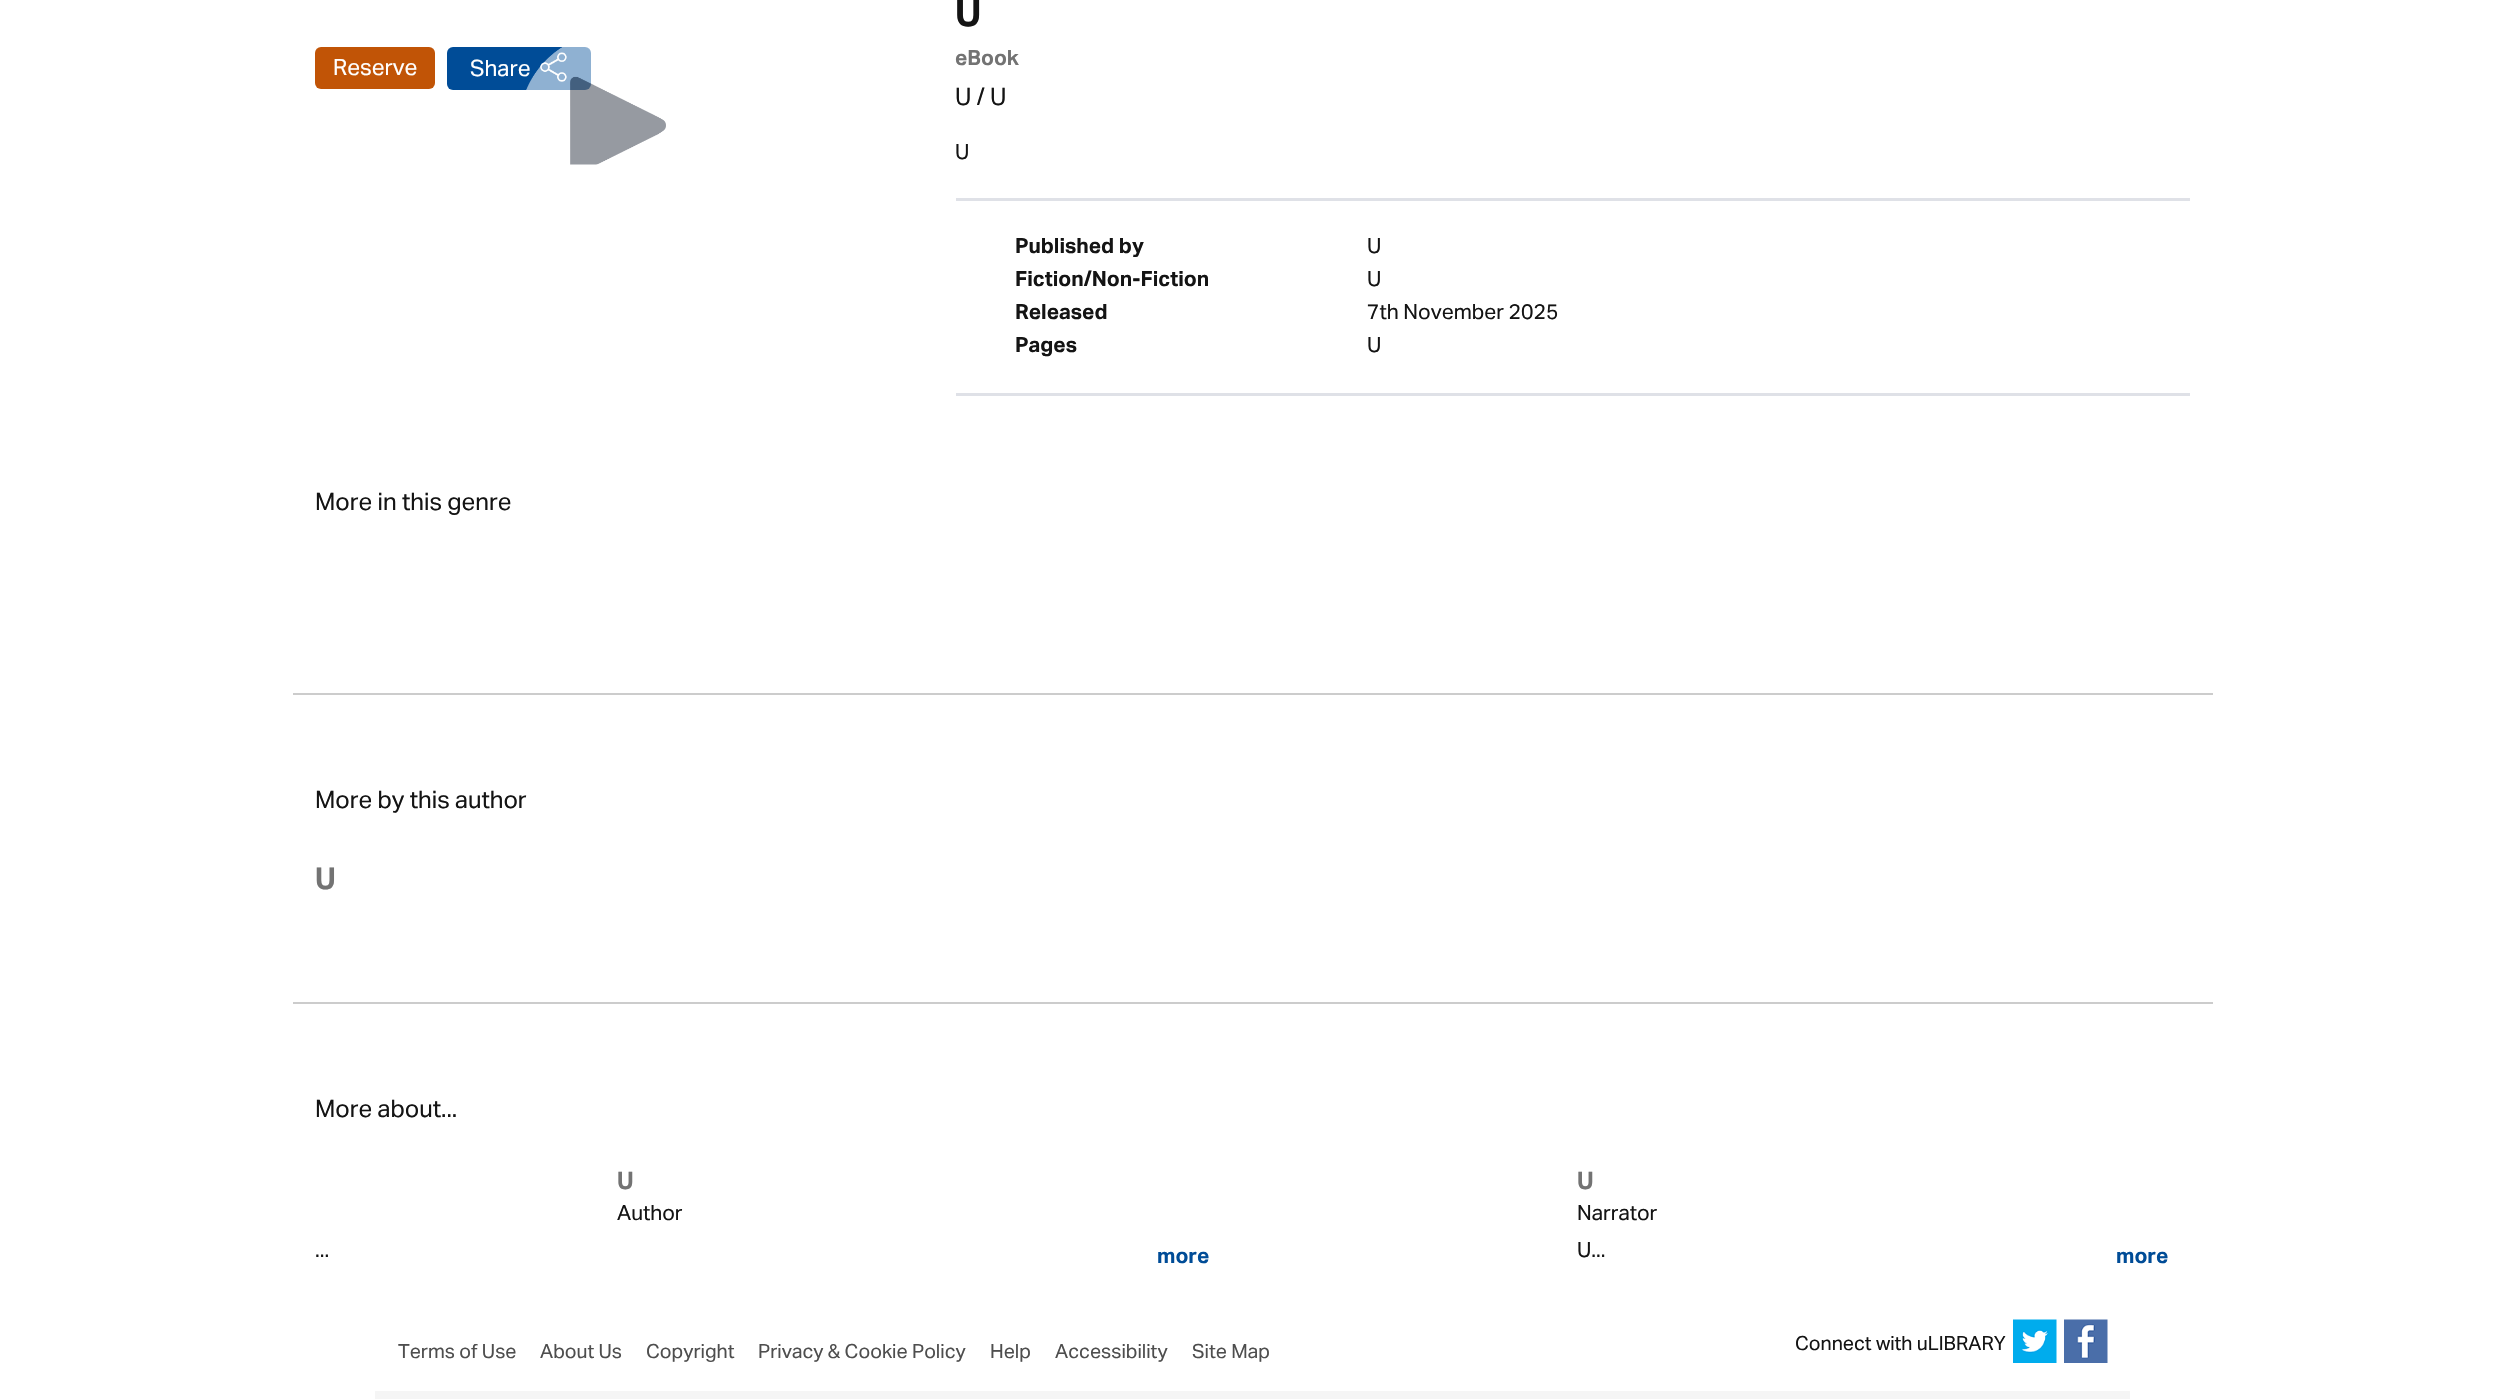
void draw(SkCanvas* canvas) {
	SkPaint fill;
	fill.setAntiAlias(true);
	auto makeFont = [&](const char* family, int weight, float size, bool italic = false) {
		SkFontStyle style(weight, SkFontStyle::kNormal_Width,
			italic ? SkFontStyle::kItalic_Slant : SkFontStyle::kUpright_Slant);
		SkFont result(fontMgr->matchFamilyStyle(family, style), size);
		result.setSubpixel(true);
		return result;
	};
	auto text = [&](const char* s, float x, float y, const SkFont& font) {
		canvas->drawString(s, x, y, font, fill);
	};
	auto box = [&](float l, float t, float r, float b) {
		canvas->drawRect(SkRect::MakeLTRB(l, t, r, b), fill);
	};
	auto roundBox = [&](float l, float t, float r, float b, float radius) {
		canvas->drawRoundRect(SkRect::MakeLTRB(l, t, r, b), radius, radius, fill);
	};
	auto picture = [&](const char* path, float l, float t, float r, float b) {
		auto image = SkImages::DeferredFromEncodedData(SkData::MakeFromFileName(path));
		canvas->drawImageRect(image, SkRect::MakeLTRB(l, t, r, b), SkSamplingOptions());
	};
	canvas->clear(0xFFFFFFFF);
	fill.setColor(0xFFC15406);
	roundBox(315, 47, 435, 89, 6);
	fill.setColor(0xFF004C97);
	roundBox(447, 47, 591, 90, 6);
	picture("image0.png", 540, 52, 567, 82);
	fill.setColor(0xFFDFE1E7);
	box(956, 198, 2190, 201);
	box(956, 393, 2190, 396);
	fill.setColor(0xFFCCCCCC);
	box(293, 693, 2213, 695);
	box(293, 1002, 2213, 1004);
	picture("image2.png", 2013, 1319, 2057, 1363);
	picture("image3.png", 2064, 1319, 2108, 1363);
	fill.setColor(0xFFF5F5F5);
	box(375, 1391, 2130, 1399);
	auto font1 = makeFont("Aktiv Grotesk", 400, 22.5f);
	fill.setColor(0xFFFFFFFF);
	text("Reserve", 333, 75, font1);
	text("Share", 470, 76, font1);
	picture("image1.png", 526, 47, 666, 165);
	auto font2 = makeFont("Aktiv Grotesk", 700, 38);
	fill.setColor(0xFF141414);
	text("U", 955, 26, font2);
	auto font3 = makeFont("Aktiv Grotesk", 700, 21);
	fill.setColor(0xFF737373);
	text("eBook", 955, 65, font3);
	auto font4 = makeFont("Aktiv Grotesk", 400, 24);
	fill.setColor(0xFF141414);
	text("U / U", 955, 105, font4);
	auto font5 = makeFont("Aktiv Grotesk", 400, 21);
	text("U", 955, 159, font5);
	text("Published by", 1015, 253, font3);
	text("U", 1367, 253, font5);
	text("Fiction/Non-Fiction", 1015, 286, font3);
	text("U", 1367, 286, font5);
	text("Released", 1015, 319, font3);
	text("7th November 2025", 1367, 319, font5);
	text("Pages", 1015, 352, font3);
	text("U", 1367, 352, font5);
	text("More in this genre", 315, 510, font4);
	text("More by this author", 315, 808, font4);
	auto font6 = makeFont("Aktiv Grotesk", 700, 30);
	fill.setColor(0xFF737373);
	text("U", 315, 889, font6);
	fill.setColor(0xFF141414);
	text("More about...", 315, 1117, font4);
	auto font7 = makeFont("Aktiv Grotesk", 700, 24);
	fill.setColor(0xFF737373);
	text("U", 617, 1189, font7);
	fill.setColor(0xFF141414);
	text("Author", 617, 1220, font5);
	text("...", 315, 1257, font5);
	fill.setColor(0xFF004C97);
	text("more", 1157, 1263, font3);
	fill.setColor(0xFF737373);
	text("U", 1577, 1189, font7);
	fill.setColor(0xFF141414);
	text("Narrator", 1577, 1220, font5);
	text("U...", 1577, 1257, font5);
	fill.setColor(0xFF004C97);
	text("more", 2116, 1263, font3);
	auto font8 = makeFont("Aktiv Grotesk", 400, 19.5f);
	fill.setColor(0xFF4E4E4E);
	text("Terms of Use", 398, 1358, font8);
	text("About Us", 540, 1358, font8);
	text("Copyright", 646, 1358, font8);
	text("Privacy & Cookie Policy", 758, 1358, font8);
	text("Help", 990, 1358, font8);
	text("Accessibility", 1055, 1358, font8);
	text("Site Map", 1192, 1358, font8);
	fill.setColor(0xFF141414);
	text("Connect with uLIBRARY", 1795, 1350, font8);
}
